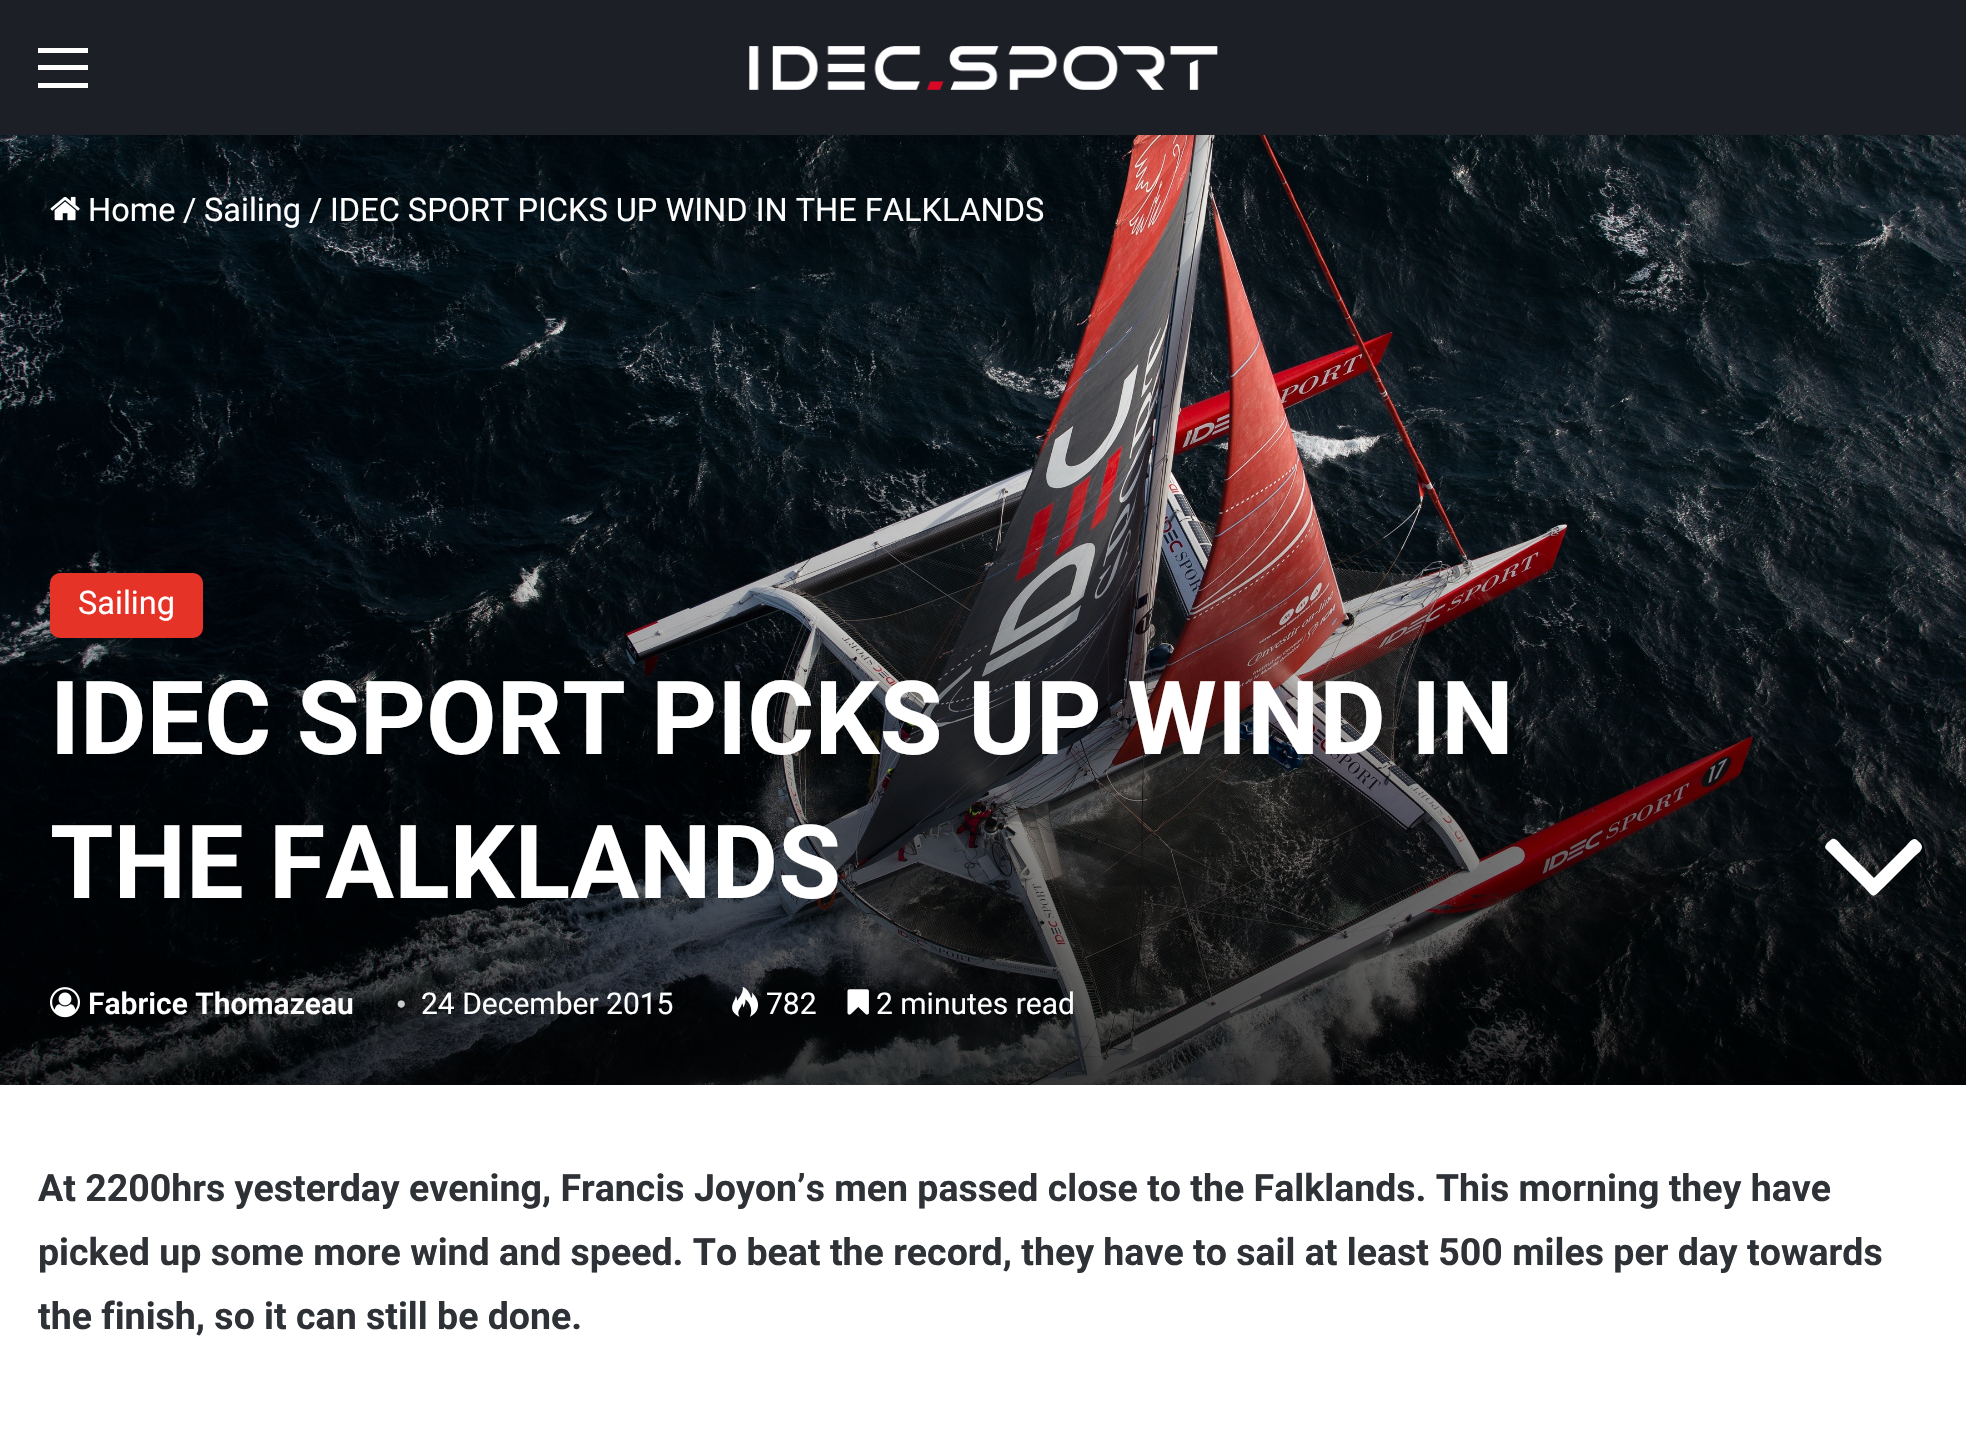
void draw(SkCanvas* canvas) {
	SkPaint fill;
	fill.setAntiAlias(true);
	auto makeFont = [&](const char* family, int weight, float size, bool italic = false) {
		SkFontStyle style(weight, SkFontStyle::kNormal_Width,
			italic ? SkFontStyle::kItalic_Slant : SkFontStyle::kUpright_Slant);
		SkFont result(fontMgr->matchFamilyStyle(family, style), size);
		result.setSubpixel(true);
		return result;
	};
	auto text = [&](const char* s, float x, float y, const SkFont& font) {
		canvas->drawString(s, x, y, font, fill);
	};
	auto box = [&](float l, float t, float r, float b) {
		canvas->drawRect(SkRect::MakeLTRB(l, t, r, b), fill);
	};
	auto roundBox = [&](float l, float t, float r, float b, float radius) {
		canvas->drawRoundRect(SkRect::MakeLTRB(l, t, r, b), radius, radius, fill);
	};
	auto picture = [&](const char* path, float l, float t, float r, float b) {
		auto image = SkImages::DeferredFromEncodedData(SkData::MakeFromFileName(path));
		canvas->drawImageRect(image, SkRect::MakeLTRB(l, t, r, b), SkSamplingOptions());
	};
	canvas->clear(0xFFFFFFFF);
	picture("image1.png", 0, 135, 1966, 1085);
	fill.setColor(0x1A000000);
	fill.setMaskFilter(SkMaskFilter::MakeBlur(kNormal_SkBlurStyle, 9));
	canvas->drawRect(SkRect::MakeLTRB(0, 8, 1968, 143), fill);
	fill.setMaskFilter(nullptr);
	fill.setColor(0xFF1D1F27);
	box(0, 0, 1966, 135);
	fill.setColor(0xFFFFFFFF);
	box(38, 65, 88, 70);
	box(38, 48, 88, 53);
	box(38, 83, 88, 88);
	picture("image0.png", 749, 46, 1218, 90);
	picture("image2.png", 50, 196, 80, 221);
	fill.setColor(0xFFE63328);
	roundBox(50, 573, 203, 638, 10);
	picture("image3.png", 50, 987, 80, 1018);
	picture("image4.png", 732, 987, 759, 1017);
	picture("image5.png", 847, 989, 869, 1015);
	fill.setColor(0xFFFFFFFF);
	canvas->drawPath(SkPathBuilder().moveTo(1922, 847).cubicTo(1922, 851, 1917, 854, 1914, 857).lineTo(1884, 887).cubicTo(1872, 898, 1875, 899, 1864, 887).lineTo(1826, 849).cubicTo(1824, 847, 1826, 845, 1827, 843).lineTo(1832, 839).cubicTo(1836, 837, 1841, 845, 1842, 846).lineTo(1874, 878).lineTo(1906, 846).cubicTo(1910, 842, 1913, 836, 1918, 841).cubicTo(1919, 842, 1922, 844, 1922, 847).close().detach(), fill);
	auto font1 = makeFont("Roboto", 400, 32.5f);
	text("Home", 88, 221, font1);
	text("/", 183, 221, font1);
	text("Sailing", 204, 221, font1);
	text("/", 309, 221, font1);
	text("IDEC SPORT PICKS UP WIND IN THE FALKLANDS", 330, 221, font1);
	text("Sailing", 78, 614, font1);
	auto font2 = makeFont("Roboto", 700, 102.5f);
	text("IDEC SPORT PICKS UP WIND IN", 50, 754, font2);
	text("THE FALKLANDS", 50, 898, font2);
	auto font3 = makeFont("Roboto", 600, 30);
	text("Fabrice Thomazeau", 88, 1014, font3);
	auto font4 = makeFont("Liberation Serif", 400, 30);
	fill.setColor(0xFFCCCCCC);
	text("•", 396, 1014, font4);
	auto font5 = makeFont("Roboto", 400, 30);
	fill.setColor(0xFFFFFFFF);
	text("24 December 2015", 421, 1014, font5);
	text("782", 766, 1014, font5);
	text("2 minutes read", 876, 1014, font5);
	auto font6 = makeFont("Roboto", 700, 37.5f);
	fill.setColor(0xFF2E3136);
	text("At 2200hrs yesterday evening, Francis Joyon’s men passed close to the Falklands. This morning they have", 38, 1201, font6);
	text("picked up some more wind and speed. To beat the record, they have to sail at least 500 miles per day towards", 38, 1265, font6);
	canvas->save();
	canvas->clipRect(SkRect::MakeLTRB(38, 1160, 1930, 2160));
	text("the finish, so it can still be done.", 38, 1329, font6);
	canvas->restore();
}
